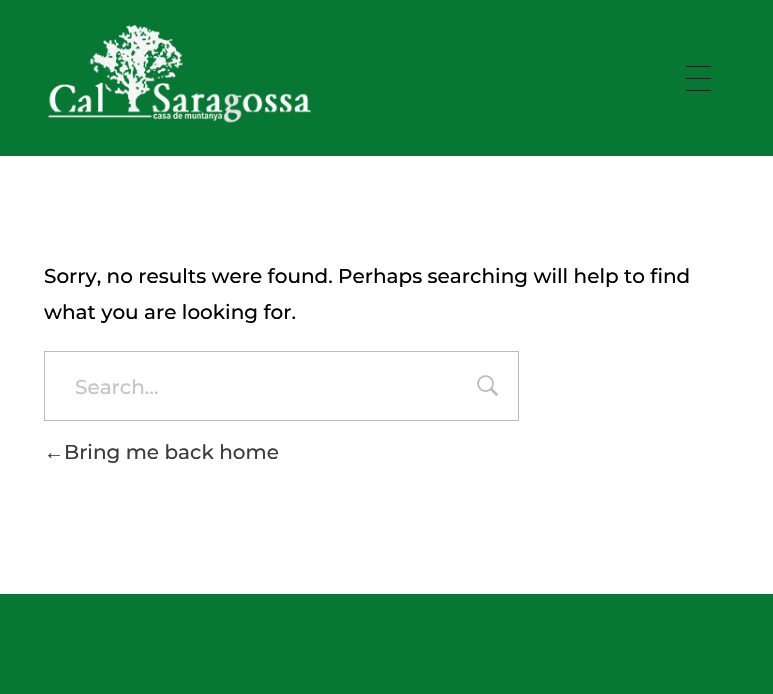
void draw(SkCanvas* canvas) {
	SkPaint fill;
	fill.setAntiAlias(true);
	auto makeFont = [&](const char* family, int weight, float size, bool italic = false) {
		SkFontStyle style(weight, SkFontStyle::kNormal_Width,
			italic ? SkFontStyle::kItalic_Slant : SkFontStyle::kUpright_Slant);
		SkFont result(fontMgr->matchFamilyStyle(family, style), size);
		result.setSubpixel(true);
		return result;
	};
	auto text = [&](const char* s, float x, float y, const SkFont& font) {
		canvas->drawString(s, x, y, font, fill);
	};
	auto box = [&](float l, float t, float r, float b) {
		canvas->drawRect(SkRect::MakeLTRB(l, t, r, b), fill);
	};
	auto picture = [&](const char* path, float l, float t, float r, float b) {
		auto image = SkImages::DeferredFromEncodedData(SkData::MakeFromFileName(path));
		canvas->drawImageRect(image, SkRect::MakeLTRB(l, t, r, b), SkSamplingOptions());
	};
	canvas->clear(0xFFFFFFFF);
	fill.setColor(0xFF067833);
	box(0, 0, 773, 156);
	picture("image0.png", 48, 25, 311, 123);
	fill.setColor(0xFF222222);
	box(686, 66, 711, 67);
	box(686, 78, 711, 79);
	box(686, 90, 711, 91);
	fill.setStyle(SkPaint::kStroke_Style);
	fill.setStrokeWidth(1);
	fill.setColor(0xFFBBBBBB);
	canvas->drawRect(SkRect::MakeLTRB(44.5f, 351.5f, 518.5f, 420.5f), fill);
	picture("image1.png", 477, 375, 499, 396);
	fill.setStyle(SkPaint::kFill_Style);
	fill.setColor(0xFF067833);
	box(0, 594, 773, 694);
	auto font1 = makeFont("Montserrat", 500, 20);
	fill.setColor(0xFF000000);
	text("Sorry, no results were found. Perhaps searching will help to find", 44, 283, font1);
	text("what you are looking for.", 44, 319, font1);
	fill.setColor(0xFFC5C5C5);
	text("Search...", 75, 394, font1);
	auto font2 = makeFont("Liberation Sans", 400, 20);
	fill.setColor(0xFF3D3D3D);
	text("←", 44, 459, font2);
	text("Bring me back home", 64, 459, font1);
}
